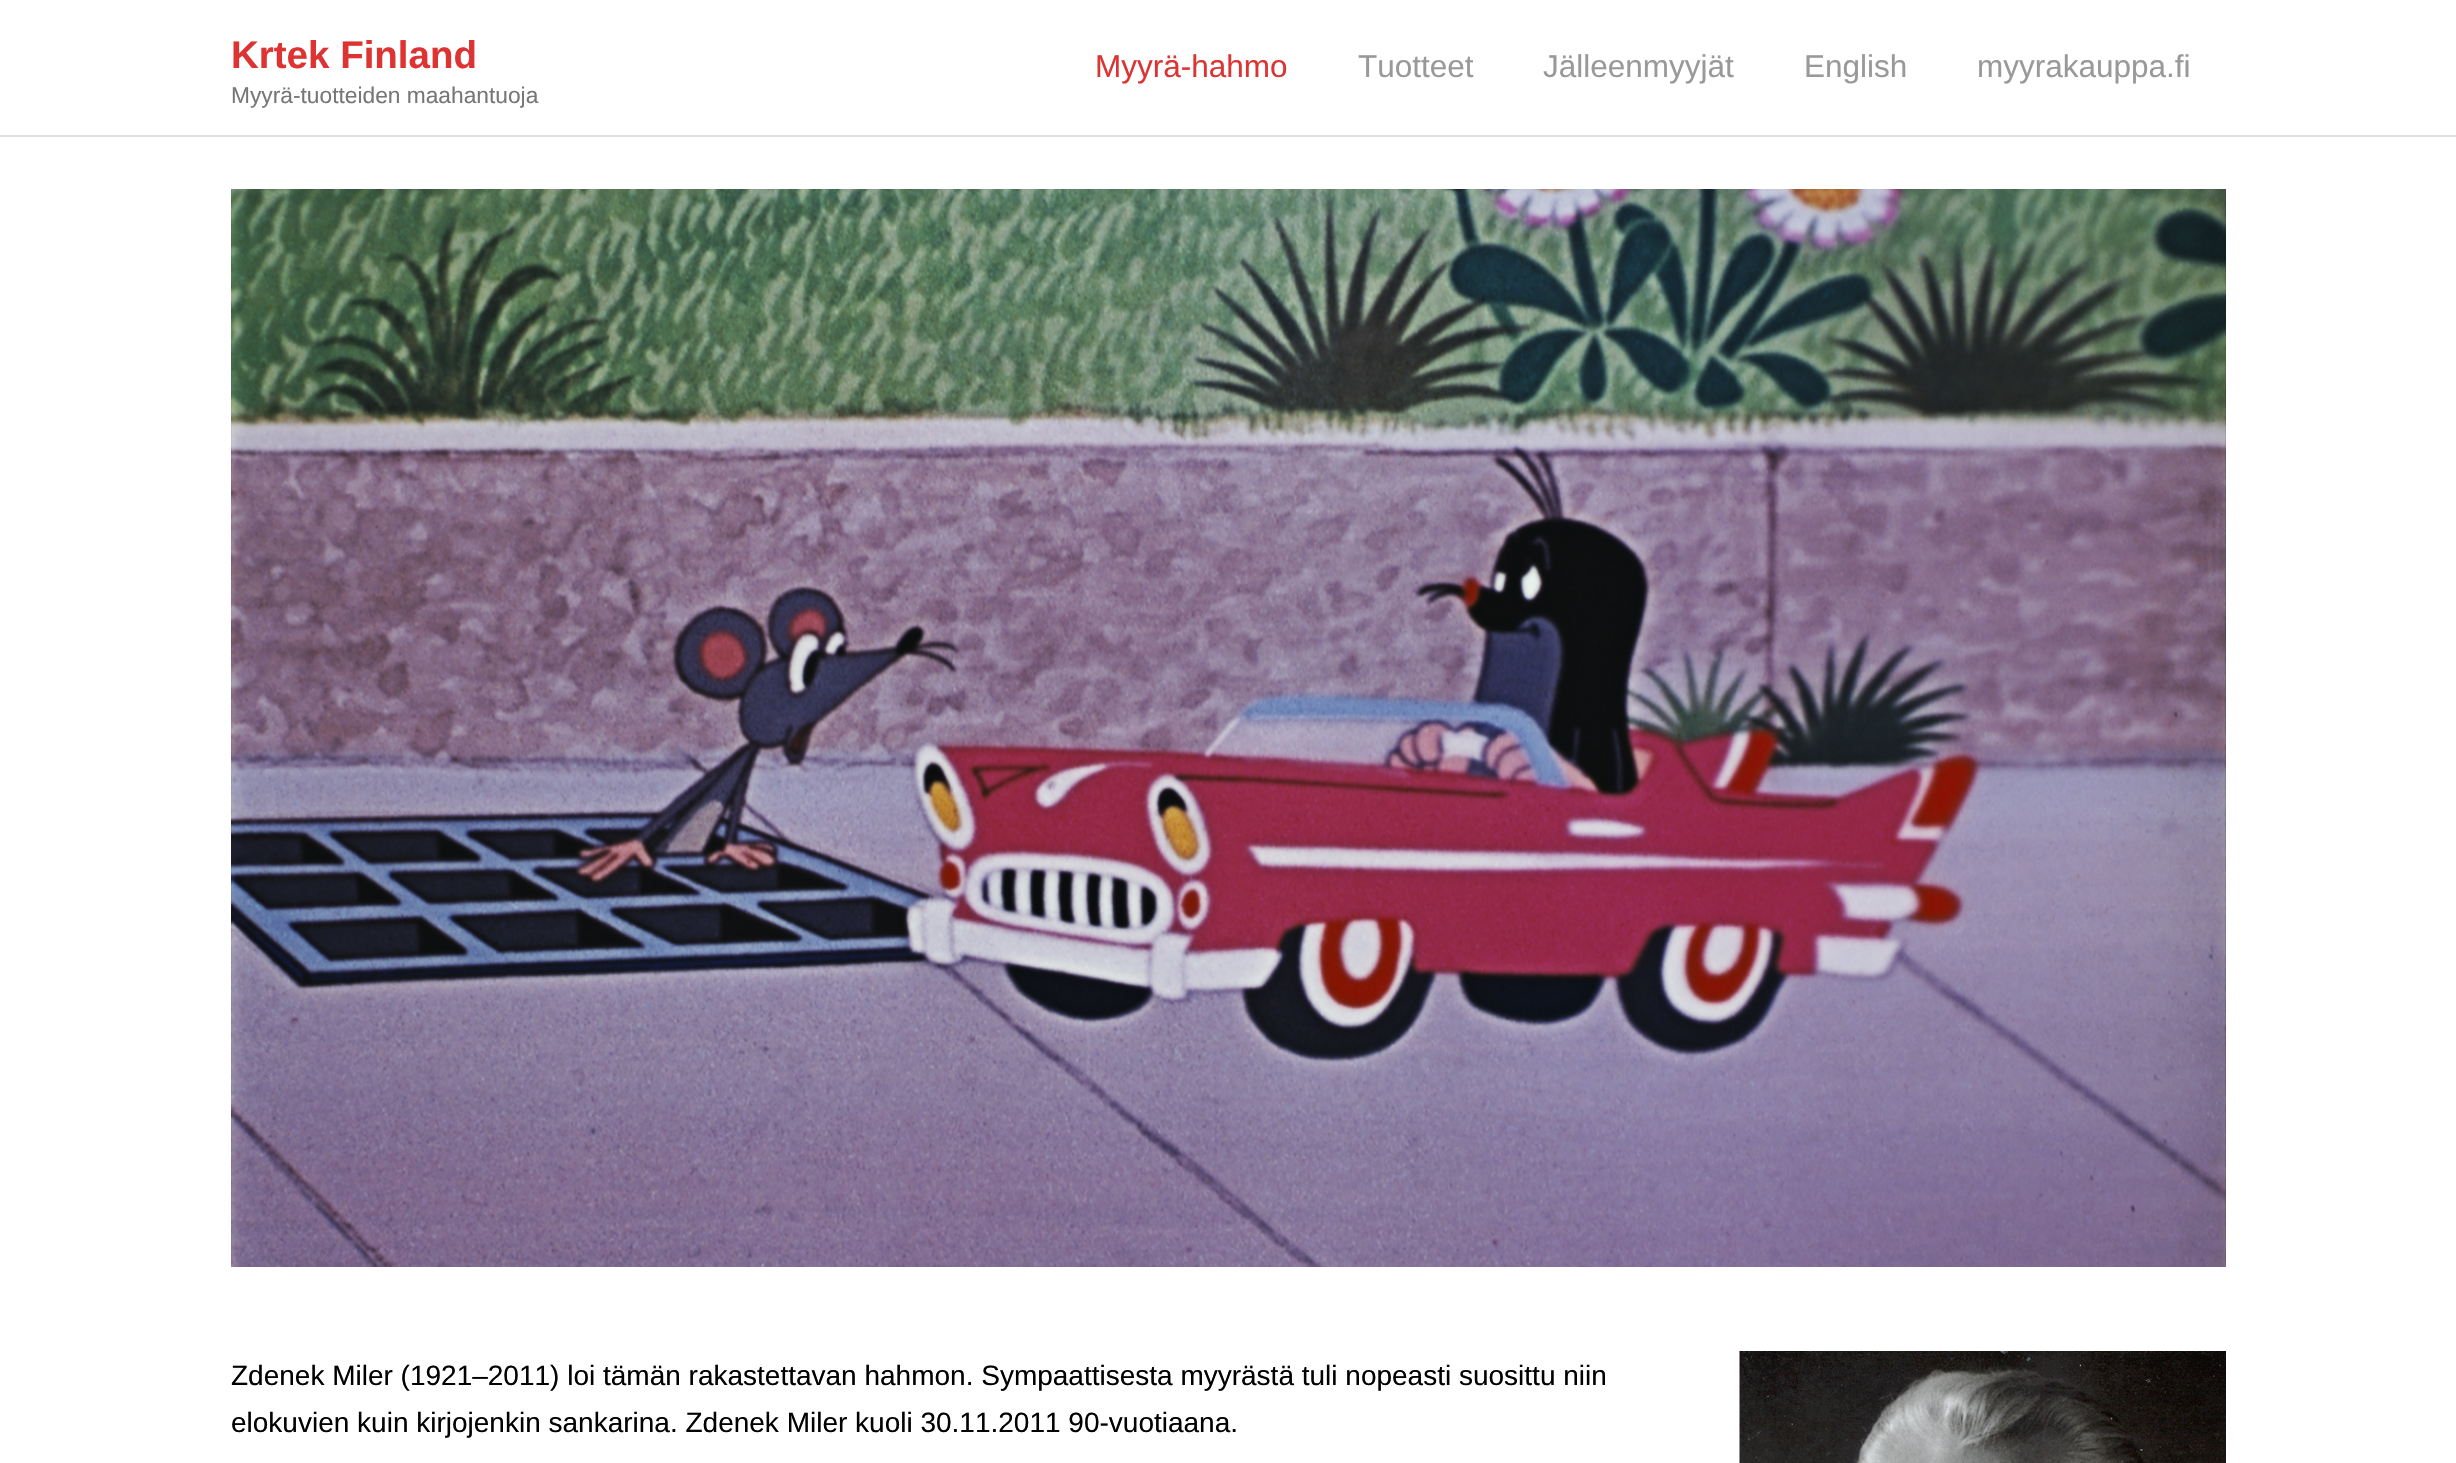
void draw(SkCanvas* canvas) {
	SkPaint fill;
	fill.setAntiAlias(true);
	auto makeFont = [&](const char* family, int weight, float size, bool italic = false) {
		SkFontStyle style(weight, SkFontStyle::kNormal_Width,
			italic ? SkFontStyle::kItalic_Slant : SkFontStyle::kUpright_Slant);
		SkFont result(fontMgr->matchFamilyStyle(family, style), size);
		result.setSubpixel(true);
		return result;
	};
	auto text = [&](const char* s, float x, float y, const SkFont& font) {
		canvas->drawString(s, x, y, font, fill);
	};
	auto box = [&](float l, float t, float r, float b) {
		canvas->drawRect(SkRect::MakeLTRB(l, t, r, b), fill);
	};
	auto picture = [&](const char* path, float l, float t, float r, float b) {
		auto image = SkImages::DeferredFromEncodedData(SkData::MakeFromFileName(path));
		canvas->drawImageRect(image, SkRect::MakeLTRB(l, t, r, b), SkSamplingOptions());
	};
	canvas->clear(0xFFFFFFFF);
	fill.setColor(0xFFE0E0E0);
	box(0, 135, 2456, 137);
	picture("image0.png", 231, 189, 2226, 1267);
	picture("image1.png", 1739, 1351, 2226, 1463);
	auto font1 = makeFont("Liberation Sans", 700, 38.5f);
	fill.setColor(0xFFDD3333);
	text("Krtek Finland", 231, 68, font1);
	auto font2 = makeFont("Liberation Sans", 400, 22.75f);
	fill.setColor(0xFF777777);
	text("Myyrä-tuotteiden maahantuoja", 231, 103, font2);
	auto font3 = makeFont("Liberation Sans", 400, 31.5f);
	fill.setColor(0xFFDD3333);
	text("Myyrä-hahmo", 1095, 77, font3);
	fill.setColor(0xFF999999);
	text("Tuotteet", 1358, 77, font3);
	text("Jälleenmyyjät", 1543, 77, font3);
	text("English", 1804, 77, font3);
	text("myyrakauppa.fi", 1977, 77, font3);
	auto font4 = makeFont("Liberation Sans", 400, 28);
	fill.setColor(0xFF000000);
	text("Zdenek Miler (1921–2011) loi tämän rakastettavan hahmon. Sympaattisesta myyrästä tuli nopeasti suosittu niin", 231, 1385, font4);
	text("elokuvien kuin kirjojenkin sankarina. Zdenek Miler kuoli 30.11.2011 90-vuotiaana.", 231, 1432, font4);
}
